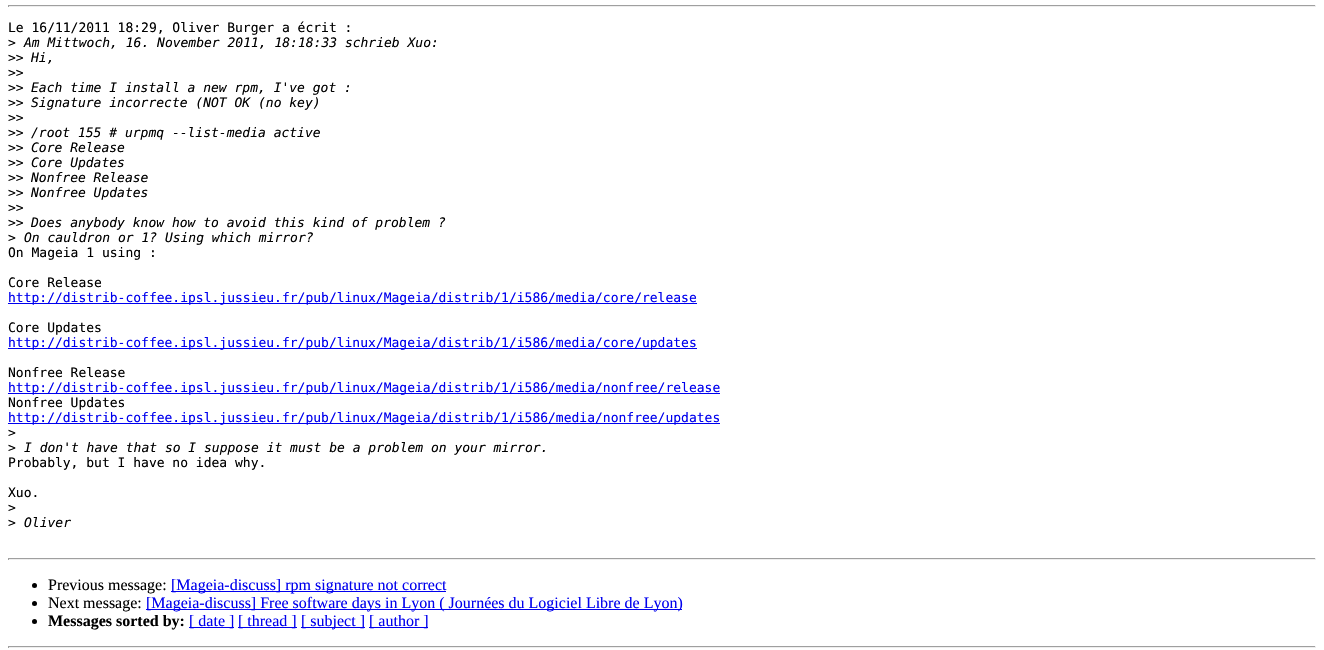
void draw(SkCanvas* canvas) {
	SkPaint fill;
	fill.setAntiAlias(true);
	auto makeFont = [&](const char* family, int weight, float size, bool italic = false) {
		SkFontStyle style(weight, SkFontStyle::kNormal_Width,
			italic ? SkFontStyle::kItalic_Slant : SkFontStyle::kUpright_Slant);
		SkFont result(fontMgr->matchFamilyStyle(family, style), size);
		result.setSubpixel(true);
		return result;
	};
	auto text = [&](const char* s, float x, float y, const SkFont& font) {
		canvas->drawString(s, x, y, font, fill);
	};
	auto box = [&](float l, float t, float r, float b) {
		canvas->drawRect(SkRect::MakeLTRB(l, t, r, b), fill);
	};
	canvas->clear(0xFFFFFFFF);
	fill.setColor(0xFF9F9F9F);
	box(8, 5, 1316, 6);
	fill.setColor(0xFFEEEEEE);
	box(1315, 5, 1316, 7);
	box(8, 6, 1316, 7);
	fill.setColor(0xFF9F9F9F);
	box(8, 5, 9, 7);
	fill.setColor(0xFF0000EE);
	box(8, 303, 697, 304);
	box(8, 348, 697, 349);
	box(8, 393, 720, 394);
	box(8, 423, 720, 424);
	fill.setColor(0xFF9F9F9F);
	box(8, 558, 1316, 559);
	fill.setColor(0xFFEEEEEE);
	box(1315, 558, 1316, 560);
	box(8, 559, 1316, 560);
	fill.setColor(0xFF9F9F9F);
	box(8, 558, 9, 560);
	fill.setColor(0xFF000000);
	canvas->drawCircle(34.5f, 585.5f, 2.5f, fill);
	fill.setColor(0xFF0000EE);
	box(171, 591, 446, 592);
	fill.setColor(0xFF000000);
	canvas->drawCircle(34.5f, 603.5f, 2.5f, fill);
	fill.setColor(0xFF0000EE);
	box(146, 609, 682, 610);
	fill.setColor(0xFF000000);
	canvas->drawCircle(34.5f, 621.5f, 2.5f, fill);
	fill.setColor(0xFF0000EE);
	box(189, 627, 234, 628);
	box(238, 627, 297, 628);
	box(301, 627, 365, 628);
	box(369, 627, 428, 628);
	fill.setColor(0xFF9F9F9F);
	box(8, 646, 1316, 647);
	fill.setColor(0xFFEEEEEE);
	box(1315, 646, 1316, 648);
	box(8, 647, 1316, 648);
	fill.setColor(0xFF9F9F9F);
	box(8, 646, 9, 648);
	auto font1 = makeFont("DejaVu Sans Mono", 400, 13);
	fill.setColor(0xFF000000);
	text("Le 16/11/2011 18:29, Oliver Burger a écrit :", 8, 32, font1);
	text(">", 8, 47, font1);
	auto font2 = makeFont("DejaVu Sans Mono", 400, 13, true);
	text("Am Mittwoch, 16. November 2011, 18:18:33 schrieb Xuo:", 24, 47, font2);
	text(">>", 8, 62, font1);
	text("Hi,", 31, 62, font2);
	text(">>", 8, 77, font1);
	text(">>", 8, 92, font1);
	text("Each time I install a new rpm, I've got :", 31, 92, font2);
	text(">>", 8, 107, font1);
	text("Signature incorrecte (NOT OK (no key)", 31, 107, font2);
	text(">>", 8, 122, font1);
	text(">>", 8, 137, font1);
	text("/root 155 # urpmq --list-media active", 31, 137, font2);
	text(">>", 8, 152, font1);
	text("Core Release", 31, 152, font2);
	text(">>", 8, 167, font1);
	text("Core Updates", 31, 167, font2);
	text(">>", 8, 182, font1);
	text("Nonfree Release", 31, 182, font2);
	text(">>", 8, 197, font1);
	text("Nonfree Updates", 31, 197, font2);
	text(">>", 8, 212, font1);
	text(">>", 8, 227, font1);
	text("Does anybody know how to avoid this kind of problem ?", 31, 227, font2);
	text(">", 8, 242, font1);
	text("On cauldron or 1? Using which mirror?", 24, 242, font2);
	text("On Mageia 1 using :", 8, 257, font1);
	text("Core Release", 8, 287, font1);
	fill.setColor(0xFF0000EE);
	text("http://distrib-coffee.ipsl.jussieu.fr/pub/linux/Mageia/distrib/1/i586/media/core/release", 8, 302, font1);
	fill.setColor(0xFF000000);
	text("Core Updates", 8, 332, font1);
	fill.setColor(0xFF0000EE);
	text("http://distrib-coffee.ipsl.jussieu.fr/pub/linux/Mageia/distrib/1/i586/media/core/updates", 8, 347, font1);
	fill.setColor(0xFF000000);
	text("Nonfree Release", 8, 377, font1);
	fill.setColor(0xFF0000EE);
	text("http://distrib-coffee.ipsl.jussieu.fr/pub/linux/Mageia/distrib/1/i586/media/nonfree/release", 8, 392, font1);
	fill.setColor(0xFF000000);
	text("Nonfree Updates", 8, 407, font1);
	fill.setColor(0xFF0000EE);
	text("http://distrib-coffee.ipsl.jussieu.fr/pub/linux/Mageia/distrib/1/i586/media/nonfree/updates", 8, 422, font1);
	fill.setColor(0xFF000000);
	text(">", 8, 437, font1);
	text(">", 8, 452, font1);
	text("I don't have that so I suppose it must be a problem on your mirror.", 24, 452, font2);
	text("Probably, but I have no idea why.", 8, 467, font1);
	text("Xuo.", 8, 497, font1);
	text(">", 8, 512, font1);
	text(">", 8, 527, font1);
	text("Oliver", 24, 527, font2);
	auto font3 = makeFont("Liberation Serif", 400, 16);
	text("Previous message:", 48, 590, font3);
	fill.setColor(0xFF0000EE);
	text("[Mageia-discuss] rpm signature not correct", 171, 590, font3);
	fill.setColor(0xFF000000);
	text("Next message:", 48, 608, font3);
	fill.setColor(0xFF0000EE);
	text("[Mageia-discuss] Free software days in Lyon ( Journées du Logiciel Libre de Lyon)", 146, 608, font3);
	auto font4 = makeFont("Liberation Serif", 700, 16);
	fill.setColor(0xFF000000);
	text("Messages sorted by:", 48, 626, font4);
	fill.setColor(0xFF0000EE);
	text("[ date ]", 189, 626, font3);
	text("[ thread ]", 238, 626, font3);
	text("[ subject ]", 301, 626, font3);
	text("[ author ]", 369, 626, font3);
}
